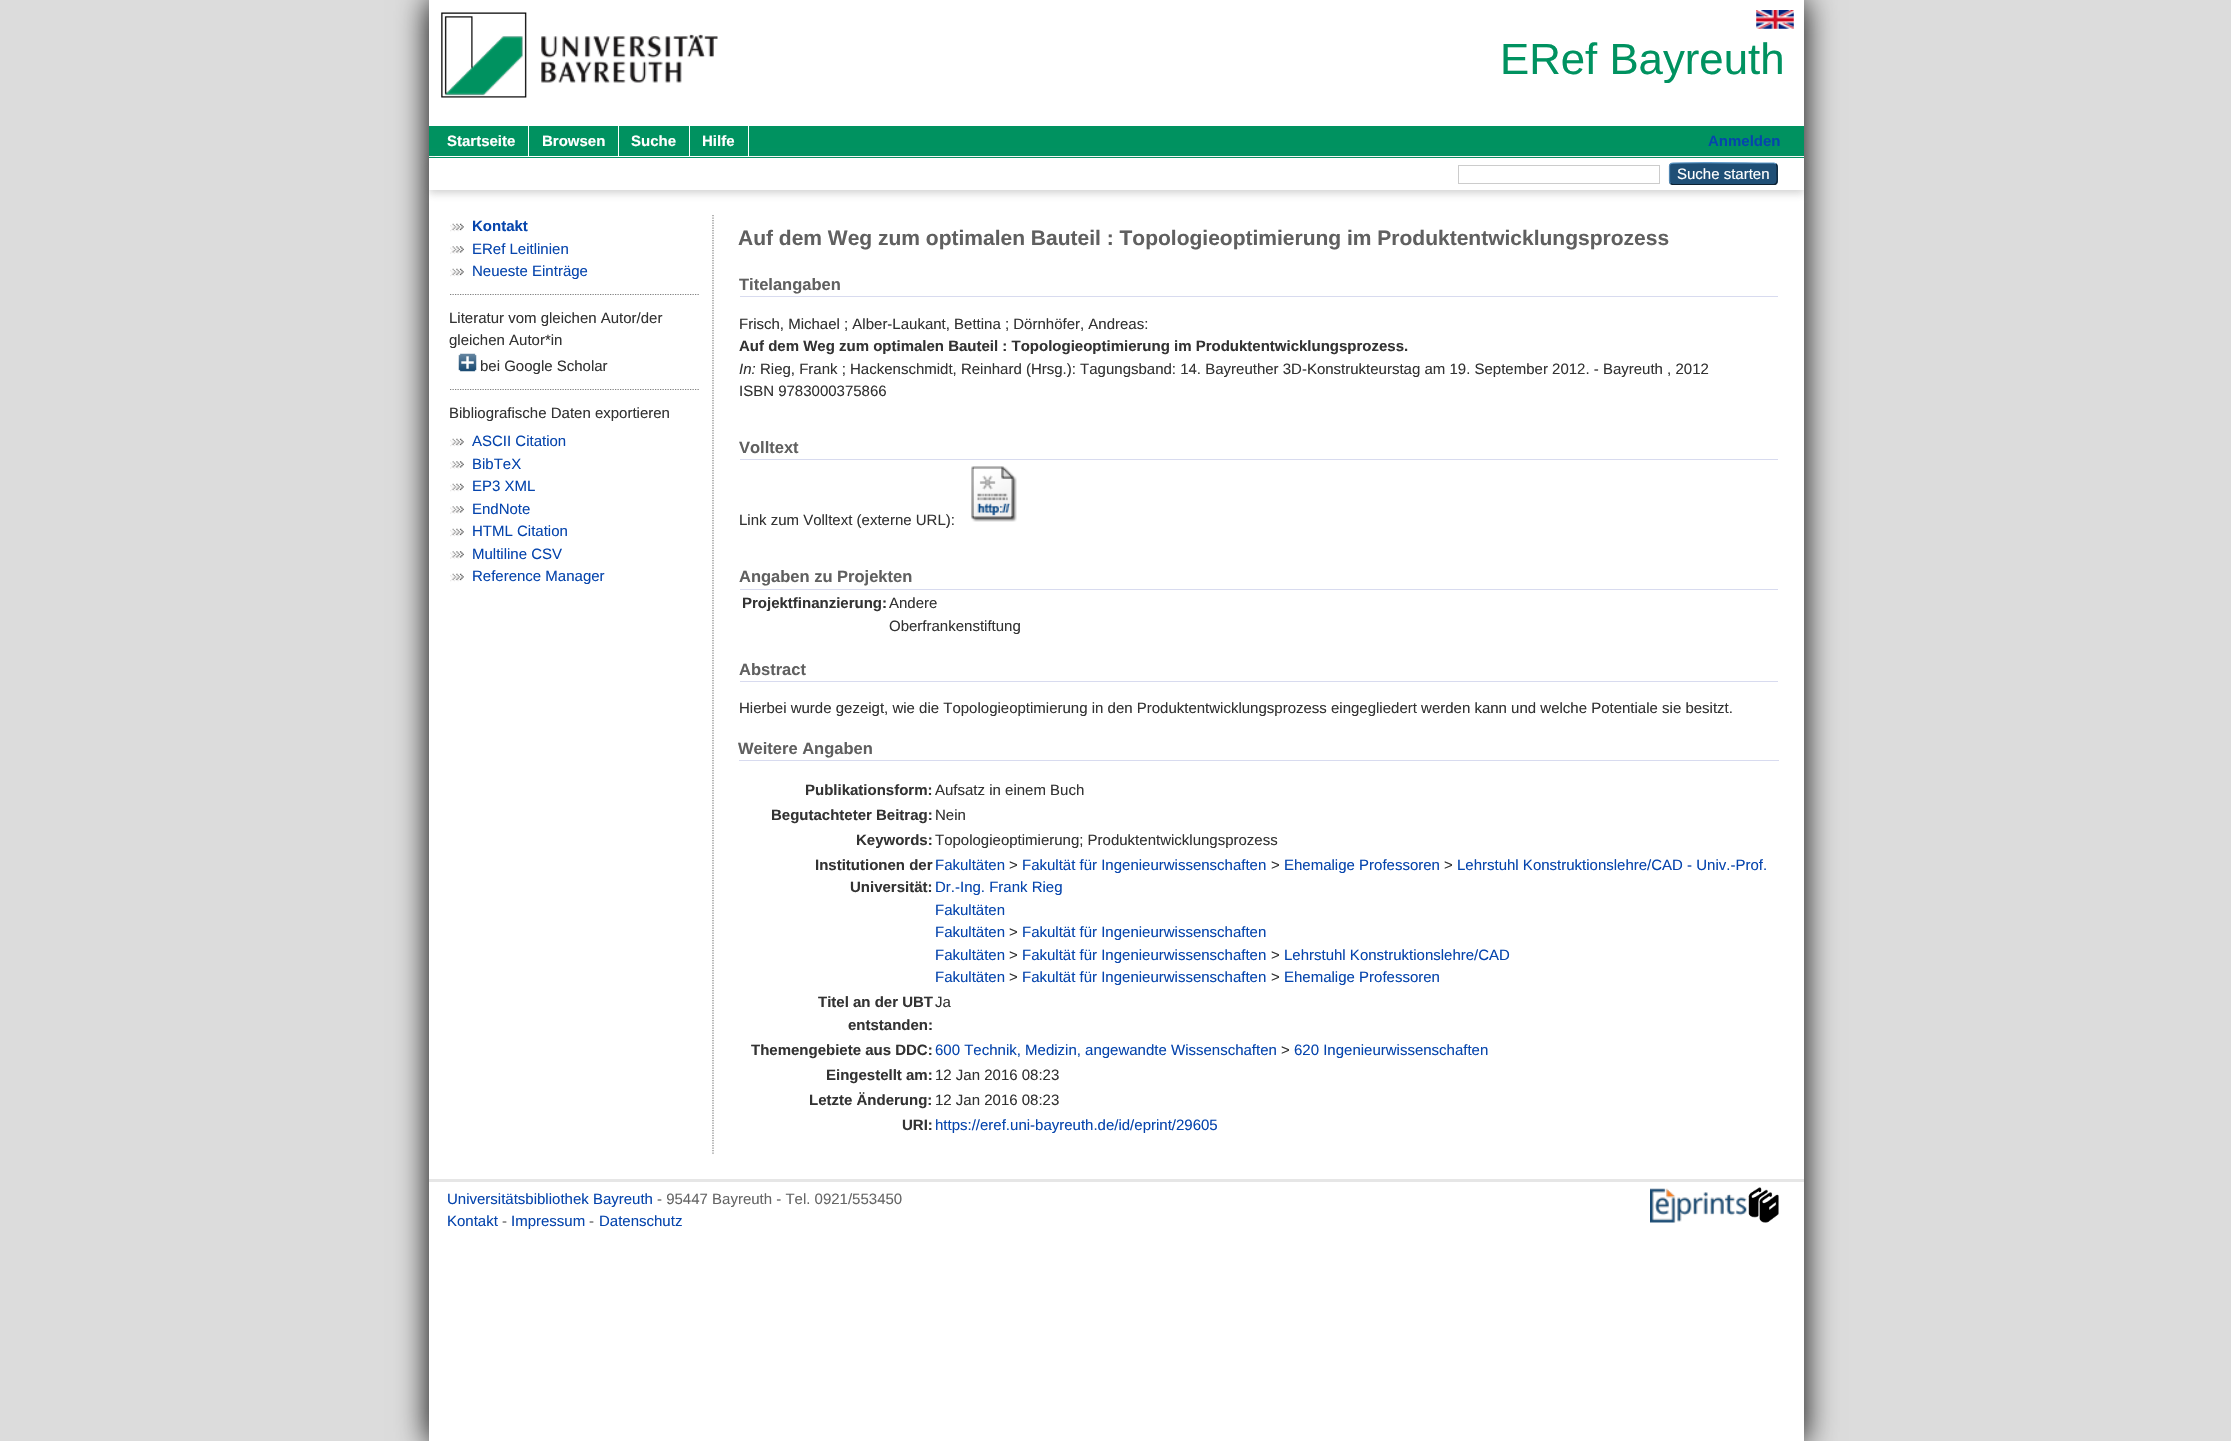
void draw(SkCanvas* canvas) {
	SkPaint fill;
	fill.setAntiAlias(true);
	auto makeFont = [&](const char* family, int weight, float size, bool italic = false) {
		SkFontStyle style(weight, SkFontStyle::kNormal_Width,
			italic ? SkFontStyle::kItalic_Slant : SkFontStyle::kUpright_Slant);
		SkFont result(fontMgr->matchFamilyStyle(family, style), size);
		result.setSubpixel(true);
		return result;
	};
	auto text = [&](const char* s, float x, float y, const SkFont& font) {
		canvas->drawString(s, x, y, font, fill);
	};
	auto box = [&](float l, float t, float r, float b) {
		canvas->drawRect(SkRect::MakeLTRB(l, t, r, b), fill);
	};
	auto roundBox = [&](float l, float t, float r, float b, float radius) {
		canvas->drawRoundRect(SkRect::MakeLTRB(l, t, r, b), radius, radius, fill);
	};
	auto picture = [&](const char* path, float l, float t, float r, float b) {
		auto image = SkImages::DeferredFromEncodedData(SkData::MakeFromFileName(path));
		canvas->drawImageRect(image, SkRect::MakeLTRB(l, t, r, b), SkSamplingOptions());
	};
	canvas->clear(0xFFDCDCDC);
	fill.setColor(0xFF000000);
	fill.setMaskFilter(SkMaskFilter::MakeBlur(kNormal_SkBlurStyle, 15));
	canvas->drawRect(SkRect::MakeLTRB(429, 0, 1804, 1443), fill);
	fill.setMaskFilter(nullptr);
	fill.setColor(0xFFFFFFFF);
	box(429, 0, 1804, 1441);
	picture("image0.png", 441, 12, 718, 98);
	picture("image1.png", 1756, 10, 1794, 29);
	fill.setColor(0xFF009260);
	box(429, 126, 1804, 158);
	fill.setColor(0xFFFFFFFF);
	box(429, 156, 1804, 157);
	fill.setColor(0x4D646464);
	fill.setMaskFilter(SkMaskFilter::MakeBlur(kNormal_SkBlurStyle, 4));
	canvas->drawRect(SkRect::MakeLTRB(429, 160, 1804, 193), fill);
	fill.setMaskFilter(nullptr);
	fill.setColor(0xFF009260);
	box(435, 155, 749, 158);
	fill.setColor(0xFFFFFFFF);
	box(435, 156, 749, 157);
	box(528, 126, 529, 156);
	box(618, 126, 619, 156);
	box(689, 126, 690, 156);
	box(748, 126, 749, 156);
	box(429, 158, 1804, 190);
	fill.setStyle(SkPaint::kStroke_Style);
	fill.setStrokeWidth(1);
	fill.setColor(0xFFCCCCCC);
	canvas->drawRect(SkRect::MakeLTRB(1458.5f, 165.5f, 1659.5f, 183.5f), fill);
	fill.setStyle(SkPaint::kFill_Style);
	fill.setColor(0xFF1F4F76);
	roundBox(1669, 163, 1778, 185, 4);
	fill.setStyle(SkPaint::kStroke_Style);
	fill.setStrokeWidth(1.2f);
	fill.setColor(0xFF5B97C7);
	canvas->drawPath(SkPathBuilder().moveTo(1670.5f, 164).lineTo(1671, 163.5f).cubicTo(1673, 162, 1748, 163, 1757, 163).lineTo(1774, 163).lineTo(1776, 164).detach(), fill);
	fill.setColor(0xFF0D2131);
	canvas->drawPath(SkPathBuilder().moveTo(1776, 164).cubicTo(1778, 166, 1777, 171.5f, 1777, 174).cubicTo(1777, 176, 1778.5f, 184.5f, 1774, 184.5f).lineTo(1672.5f, 184.5f).lineTo(1670.5f, 183.5f).detach(), fill);
	fill.setColor(0xFF5287B3);
	canvas->drawPath(SkPathBuilder().moveTo(1670.5f, 183.5f).cubicTo(1669.5f, 183, 1669.5f, 182, 1669.5f, 181).lineTo(1669.5f, 166).cubicTo(1669.5f, 165.5f, 1669.5f, 164.5f, 1670.5f, 164).detach(), fill);
	picture("image2.png", 450, 223, 464, 232);
	picture("image3.png", 450, 246, 464, 254);
	picture("image2.png", 450, 268, 464, 277);
	fill.setColor(0xFF808080);
	fill.setPathEffect(SkDashPathEffect::Make({{1.25f, 1.25f}}, 0));
	canvas->drawPath(SkPathBuilder().moveTo(450, 294.5f).lineTo(700, 294.5f).detach(), fill);
	fill.setPathEffect(nullptr);
	picture("image4.png", 458, 353, 477, 372);
	fill.setPathEffect(SkDashPathEffect::Make({{1.25f, 1.25f}}, 0));
	canvas->drawPath(SkPathBuilder().moveTo(450, 389.5f).lineTo(700, 389.5f).detach(), fill);
	fill.setPathEffect(nullptr);
	picture("image2.png", 450, 438, 464, 447);
	picture("image3.png", 450, 461, 464, 469);
	picture("image2.png", 450, 483, 464, 492);
	picture("image3.png", 450, 506, 464, 514);
	picture("image2.png", 450, 528, 464, 537);
	picture("image3.png", 450, 551, 464, 559);
	picture("image2.png", 450, 573, 464, 582);
	fill.setPathEffect(SkDashPathEffect::Make({{1.25f, 1.25f}}, 0));
	canvas->drawPath(SkPathBuilder().moveTo(713, 215).lineTo(713, 1154).detach(), fill);
	fill.setPathEffect(nullptr);
	fill.setStyle(SkPaint::kFill_Style);
	fill.setColor(0xFFD8DBEF);
	box(740, 296, 1778, 297);
	box(740, 459, 1778, 460);
	picture("image5.png", 971, 466, 1017, 522);
	box(740, 589, 1778, 590);
	box(740, 681, 1778, 682);
	box(739, 760, 1779, 761);
	fill.setColor(0xFFE6E6E6);
	box(429, 1179, 1804, 1182);
	picture("image6.png", 1650, 1188, 1747, 1223);
	picture("image7.png", 1748, 1187, 1779, 1223);
	auto font1 = makeFont("Liberation Sans", 400, 43.75f);
	fill.setColor(0xFF009260);
	text("ERef Bayreuth", 1500, 74, font1);
	auto font2 = makeFont("Liberation Sans", 700, 15);
	fill.setColor(0xFFFFFFFF);
	text("Startseite", 447, 146, font2);
	text("Browsen", 542, 146, font2);
	text("Suche", 631, 146, font2);
	text("Hilfe", 702, 146, font2);
	fill.setColor(0xFF0645AD);
	text("Anmelden", 1708, 146, font2);
	auto font3 = makeFont("Liberation Sans", 400, 15);
	fill.setColor(0xFFFFFFFF);
	text("Suche starten", 1677, 179, font3);
	fill.setColor(0xFF0645AD);
	text("Kontakt", 472, 231, font2);
	text("ERef Leitlinien", 472, 254, font3);
	text("Neueste Einträge", 472, 276, font3);
	fill.setColor(0xFF333333);
	text("Literatur vom gleichen Autor/der", 449, 323, font3);
	text("gleichen Autor*in", 449, 345, font3);
	text("bei Google Scholar", 480, 371, font3);
	text("Bibliografische Daten exportieren", 449, 418, font3);
	fill.setColor(0xFF0645AD);
	text("ASCII Citation", 472, 446, font3);
	text("BibTeX", 472, 469, font3);
	text("EP3 XML", 472, 491, font3);
	text("EndNote", 472, 514, font3);
	text("HTML Citation", 472, 536, font3);
	text("Multiline CSV", 472, 559, font3);
	text("Reference Manager", 472, 581, font3);
	auto font4 = makeFont("Liberation Sans", 700, 21);
	fill.setColor(0xFF606060);
	text("Auf dem Weg zum optimalen Bauteil : Topologieoptimierung im Produktentwicklungsprozess", 738, 245, font4);
	auto font5 = makeFont("Liberation Sans", 700, 16.5f);
	text("Titelangaben", 739, 290, font5);
	fill.setColor(0xFF333333);
	text("Frisch, Michael ; Alber-Laukant, Bettina ; Dörnhöfer, Andreas:", 739, 329, font3);
	text("Auf dem Weg zum optimalen Bauteil : Topologieoptimierung im Produktentwicklungsprozess.", 739, 351, font2);
	auto font6 = makeFont("Liberation Sans", 400, 15, true);
	text("In:", 739, 374, font6);
	text("Rieg, Frank ; Hackenschmidt, Reinhard (Hrsg.): Tagungsband: 14. Bayreuther 3D-Konstrukteurstag am 19. September 2012. - Bayreuth , 2012", 760, 374, font3);
	text("ISBN 9783000375866", 739, 396, font3);
	fill.setColor(0xFF606060);
	text("Volltext", 739, 453, font5);
	fill.setColor(0xFF333333);
	text("Link zum Volltext (externe URL):", 739, 525, font3);
	fill.setColor(0xFF606060);
	text("Angaben zu Projekten", 739, 582, font5);
	fill.setColor(0xFF333333);
	text("Projektfinanzierung:", 742, 608, font2);
	text("Andere", 889, 608, font3);
	text("Oberfrankenstiftung", 889, 631, font3);
	fill.setColor(0xFF606060);
	text("Abstract", 739, 675, font5);
	fill.setColor(0xFF333333);
	text("Hierbei wurde gezeigt, wie die Topologieoptimierung in den Produktentwicklungsprozess eingegliedert werden kann und welche Potentiale sie besitzt.", 739, 713, font3);
	fill.setColor(0xFF606060);
	text("Weitere Angaben", 738, 754, font5);
	fill.setColor(0xFF333333);
	text("Publikationsform:", 805, 795, font2);
	text("Aufsatz in einem Buch", 935, 795, font3);
	text("Begutachteter Beitrag:", 771, 820, font2);
	text("Nein", 935, 820, font3);
	text("Keywords:", 856, 845, font2);
	text("Topologieoptimierung; Produktentwicklungsprozess", 935, 845, font3);
	text("Institutionen der", 815, 870, font2);
	text("Universität:", 850, 892, font2);
	fill.setColor(0xFF0645AD);
	text("Fakultäten", 935, 870, font3);
	fill.setColor(0xFF333333);
	text(">", 1009, 870, font3);
	fill.setColor(0xFF0645AD);
	text("Fakultät für Ingenieurwissenschaften", 1022, 870, font3);
	fill.setColor(0xFF333333);
	text(">", 1271, 870, font3);
	fill.setColor(0xFF0645AD);
	text("Ehemalige Professoren", 1284, 870, font3);
	fill.setColor(0xFF333333);
	text(">", 1444, 870, font3);
	fill.setColor(0xFF0645AD);
	text("Lehrstuhl Konstruktionslehre/CAD - Univ.-Prof.", 1457, 870, font3);
	text("Dr.-Ing. Frank Rieg", 935, 892, font3);
	text("Fakultäten", 935, 915, font3);
	text("Fakultäten", 935, 937, font3);
	fill.setColor(0xFF333333);
	text(">", 1009, 937, font3);
	fill.setColor(0xFF0645AD);
	text("Fakultät für Ingenieurwissenschaften", 1022, 937, font3);
	text("Fakultäten", 935, 960, font3);
	fill.setColor(0xFF333333);
	text(">", 1009, 960, font3);
	fill.setColor(0xFF0645AD);
	text("Fakultät für Ingenieurwissenschaften", 1022, 960, font3);
	fill.setColor(0xFF333333);
	text(">", 1271, 960, font3);
	fill.setColor(0xFF0645AD);
	text("Lehrstuhl Konstruktionslehre/CAD", 1284, 960, font3);
	text("Fakultäten", 935, 982, font3);
	fill.setColor(0xFF333333);
	text(">", 1009, 982, font3);
	fill.setColor(0xFF0645AD);
	text("Fakultät für Ingenieurwissenschaften", 1022, 982, font3);
	fill.setColor(0xFF333333);
	text(">", 1271, 982, font3);
	fill.setColor(0xFF0645AD);
	text("Ehemalige Professoren", 1284, 982, font3);
	fill.setColor(0xFF333333);
	text("Titel an der UBT", 818, 1007, font2);
	text("entstanden:", 848, 1030, font2);
	text("Ja", 935, 1007, font3);
	text("Themengebiete aus DDC:", 751, 1055, font2);
	fill.setColor(0xFF0645AD);
	text("600 Technik, Medizin, angewandte Wissenschaften", 935, 1055, font3);
	fill.setColor(0xFF333333);
	text(">", 1281, 1055, font3);
	fill.setColor(0xFF0645AD);
	text("620 Ingenieurwissenschaften", 1294, 1055, font3);
	fill.setColor(0xFF333333);
	text("Eingestellt am:", 826, 1080, font2);
	text("12 Jan 2016 08:23", 935, 1080, font3);
	text("Letzte Änderung:", 809, 1105, font2);
	text("12 Jan 2016 08:23", 935, 1105, font3);
	text("URI:", 902, 1130, font2);
	fill.setColor(0xFF0645AD);
	text("https://eref.uni-bayreuth.de/id/eprint/29605", 935, 1130, font3);
	text("Universitätsbibliothek Bayreuth", 447, 1204, font3);
	fill.setColor(0xFF666666);
	text("- 95447 Bayreuth - Tel. 0921/553450", 657, 1204, font3);
	fill.setColor(0xFF0645AD);
	text("Kontakt", 447, 1226, font3);
	fill.setColor(0xFF666666);
	text("-", 502, 1226, font3);
	fill.setColor(0xFF0645AD);
	text("Impressum", 511, 1226, font3);
	fill.setColor(0xFF666666);
	text("-", 589, 1226, font3);
	fill.setColor(0xFF0645AD);
	text("Datenschutz", 599, 1226, font3);
}
